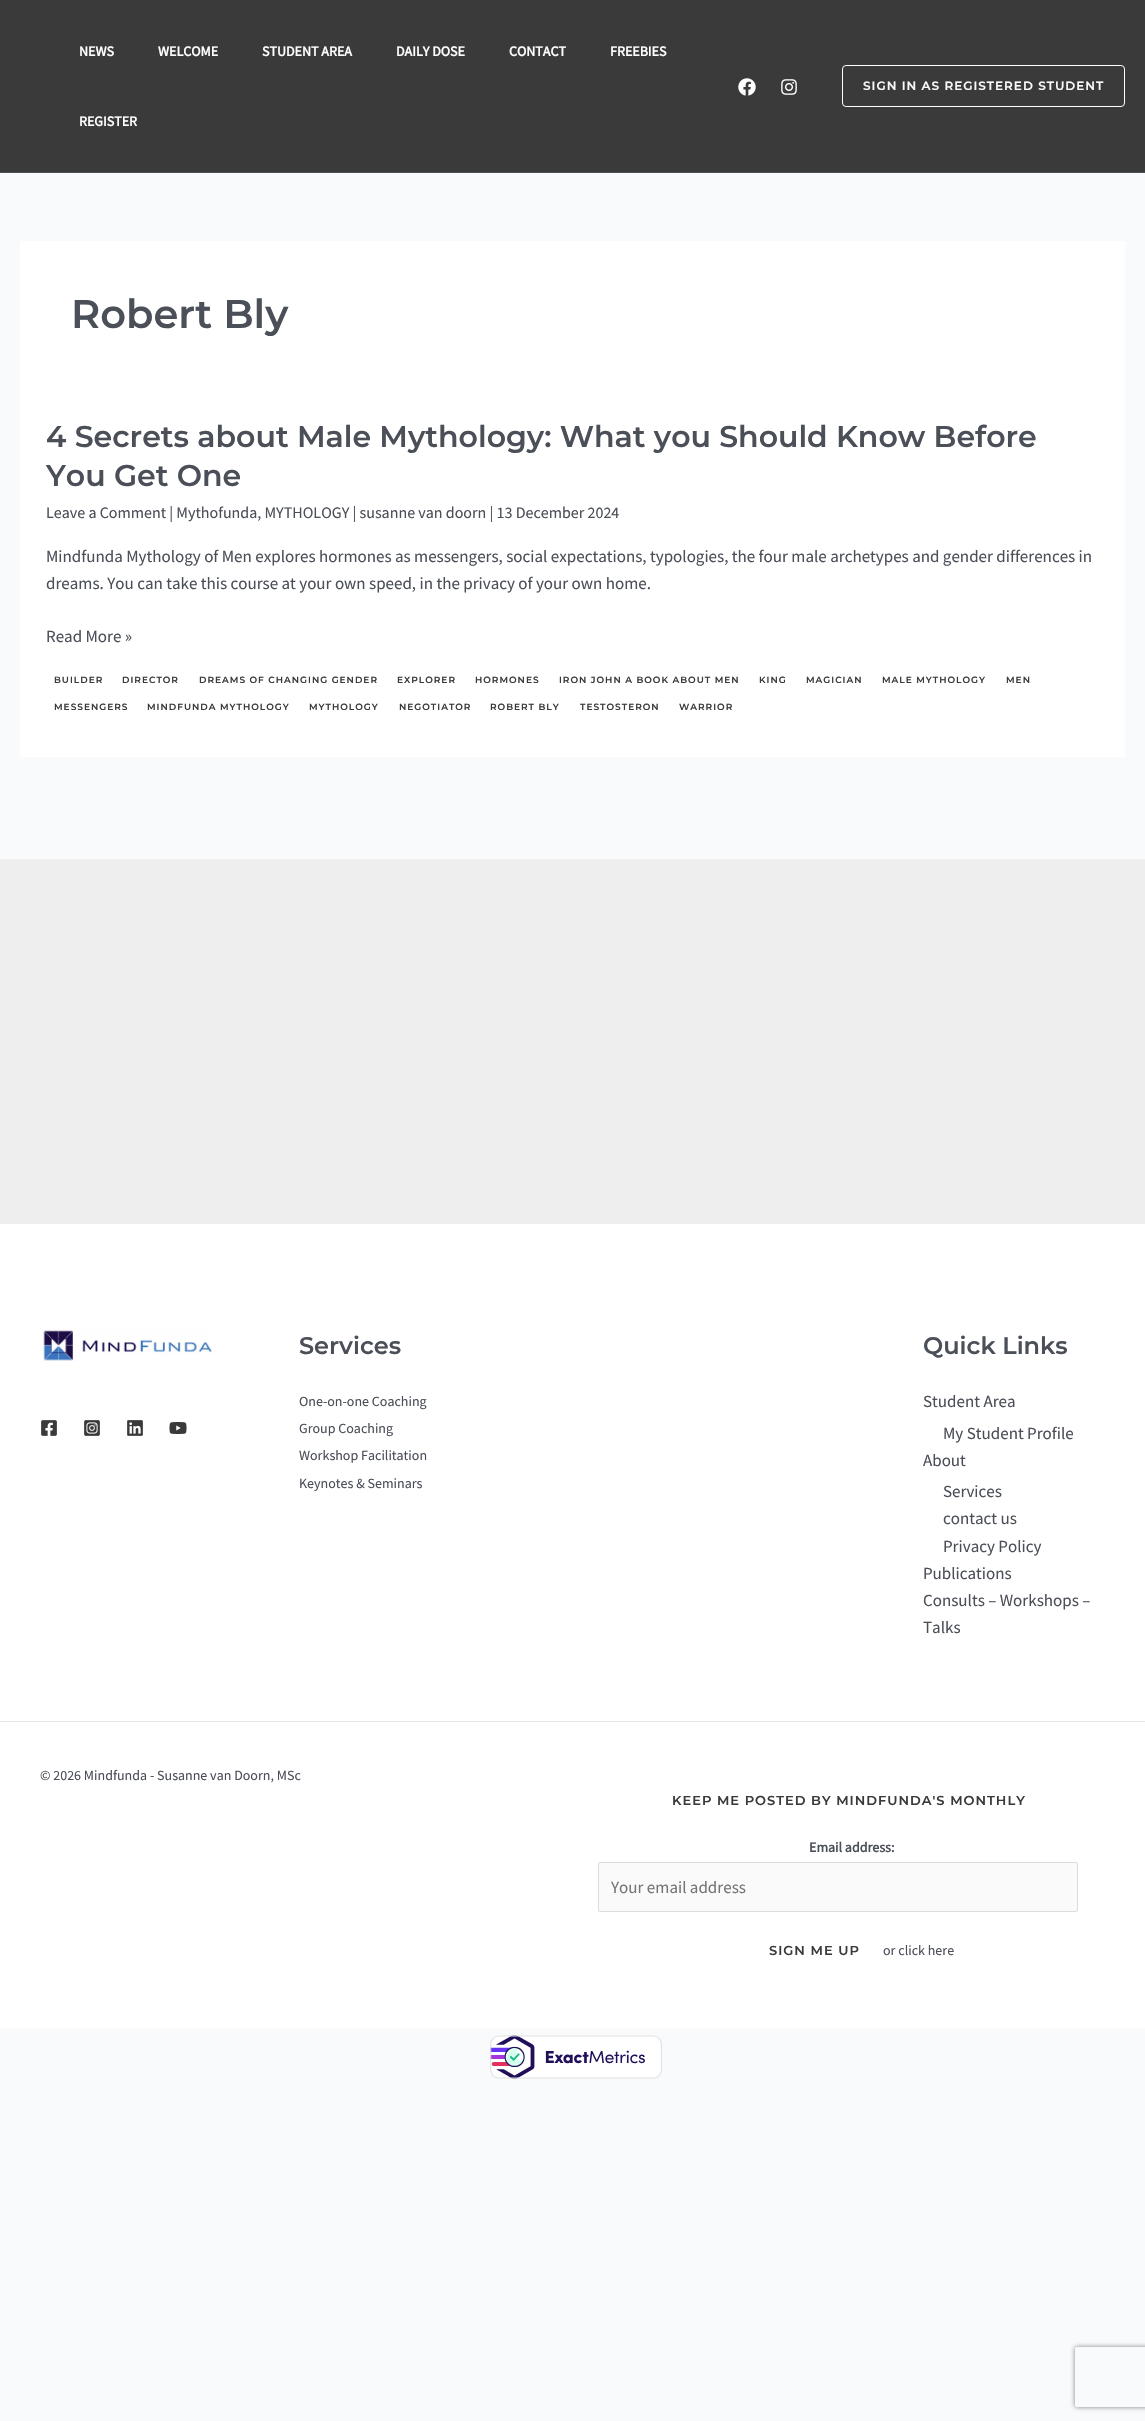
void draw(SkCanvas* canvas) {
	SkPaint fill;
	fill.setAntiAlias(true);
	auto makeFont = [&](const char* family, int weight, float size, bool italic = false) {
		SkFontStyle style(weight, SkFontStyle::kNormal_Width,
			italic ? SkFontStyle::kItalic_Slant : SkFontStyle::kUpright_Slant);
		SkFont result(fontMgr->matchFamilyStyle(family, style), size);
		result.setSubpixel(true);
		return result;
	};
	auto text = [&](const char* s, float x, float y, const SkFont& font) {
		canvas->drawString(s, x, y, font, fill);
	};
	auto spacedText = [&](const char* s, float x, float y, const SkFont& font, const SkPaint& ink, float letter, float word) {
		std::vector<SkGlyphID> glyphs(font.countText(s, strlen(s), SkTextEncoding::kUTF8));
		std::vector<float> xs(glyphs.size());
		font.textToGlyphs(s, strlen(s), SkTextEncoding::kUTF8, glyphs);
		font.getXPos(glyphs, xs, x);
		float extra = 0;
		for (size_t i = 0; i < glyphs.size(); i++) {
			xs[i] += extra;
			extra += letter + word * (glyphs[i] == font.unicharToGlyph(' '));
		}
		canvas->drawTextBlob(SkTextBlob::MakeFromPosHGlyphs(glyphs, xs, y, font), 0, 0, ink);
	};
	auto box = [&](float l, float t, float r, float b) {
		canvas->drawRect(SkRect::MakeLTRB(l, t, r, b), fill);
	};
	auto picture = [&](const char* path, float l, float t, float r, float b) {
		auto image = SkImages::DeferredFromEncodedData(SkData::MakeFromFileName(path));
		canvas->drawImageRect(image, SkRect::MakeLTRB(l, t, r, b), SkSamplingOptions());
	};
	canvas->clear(0xFFF9FAFB);
	fill.setColor(0xFF3A3A3A);
	box(0, 0, 1145, 172);
	fill.setColor(0xFF4B4F58);
	box(0, 172, 1145, 173);
	picture("image0.png", 738, 78, 756, 96);
	picture("image1.png", 781, 79, 797, 95);
	fill.setStyle(SkPaint::kStroke_Style);
	fill.setStrokeWidth(1);
	fill.setColor(0xFFFFFFFF);
	canvas->drawRoundRect(SkRect::MakeLTRB(842.5f, 65.5f, 1124.5f, 106.5f), 3.5f, 3.5f, fill);
	fill.setStyle(SkPaint::kFill_Style);
	box(20, 241, 1125, 757);
	box(0, 1224, 1145, 1721);
	fill.setColor(0xFFEEEEEE);
	box(0, 859, 1145, 1224);
	picture("image2.png", 43, 1328, 213, 1361);
	picture("image3.png", 41, 1420, 57, 1436);
	picture("image4.png", 84, 1420, 100, 1436);
	picture("image5.png", 127, 1420, 143, 1436);
	picture("image6.png", 169, 1422, 187, 1434);
	fill.setColor(0xFFFFFFFF);
	box(0, 1722, 1145, 2028);
	fill.setColor(0xFFE8E8E8);
	box(0, 1721, 1145, 1722);
	fill.setColor(0xFFFAFAFA);
	canvas->drawRoundRect(SkRect::MakeLTRB(598.5f, 1862.5f, 1077.5f, 1911.5f), 1.5f, 1.5f, fill);
	fill.setStyle(SkPaint::kStroke_Style);
	fill.setColor(0xFFDDDDDD);
	canvas->drawRoundRect(SkRect::MakeLTRB(598.5f, 1862.5f, 1077.5f, 1911.5f), 1.5f, 1.5f, fill);
	picture("image7.png", 490, 2035, 662, 2079);
	canvas->save();
	canvas->clipPath(SkPathBuilder(SkPathFillType::kEvenOdd).moveTo(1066, 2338).lineTo(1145, 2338).lineTo(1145, 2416).lineTo(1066, 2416).close().moveTo(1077, 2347).lineTo(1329, 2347).cubicTo(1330, 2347, 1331, 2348, 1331, 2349).lineTo(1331, 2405).cubicTo(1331, 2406, 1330, 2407, 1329, 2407).lineTo(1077, 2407).cubicTo(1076, 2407, 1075, 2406, 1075, 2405).lineTo(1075, 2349).cubicTo(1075, 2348, 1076, 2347, 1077, 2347).close().detach(), true);
	fill.setStyle(SkPaint::kFill_Style);
	fill.setColor(0xFF808080);
	fill.setMaskFilter(SkMaskFilter::MakeBlur(kNormal_SkBlurStyle, 2.5f));
	canvas->drawRoundRect(SkRect::MakeLTRB(1075, 2347, 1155, 2407), 2, 2, fill);
	fill.setMaskFilter(nullptr);
	canvas->restore();
	auto font1 = makeFont("Source Sans Pro", 700, 14);
	fill.setColor(0xFFFFFFFF);
	text("NEWS", 79, 56, font1);
	text("WELCOME", 158, 56, font1);
	text("STUDENT AREA", 262, 56, font1);
	text("DAILY DOSE", 396, 56, font1);
	text("CONTACT", 509, 56, font1);
	text("FREEBIES", 610, 56, font1);
	text("REGISTER", 79, 126, font1);
	auto font2 = makeFont("Montserrat", 600, 12);
	fill.setColor(0xFFF9FAFB);
	spacedText("SIGN IN AS REGISTERED STUDENT", 863, 90, font2, fill, 1, 0);
	auto font3 = makeFont("Montserrat", 600, 40);
	fill.setColor(0xFF4B4F58);
	text("Robert Bly", 71, 328, font3);
	auto font4 = makeFont("Montserrat", 600, 30);
	text("4 Secrets about Male Mythology: What you Should Know Before", 46, 447, font4);
	text("You Get One", 46, 486, font4);
	auto font5 = makeFont("Source Sans Pro", 400, 16);
	text("Leave a Comment | Mythofunda, MYTHOLOGY | susanne van doorn | 13 December 2024", 46, 518, font5);
	auto font6 = makeFont("Source Sans Pro", 400, 17);
	text("Mindfunda Mythology of Men explores hormones as messengers, social expectations, typologies, the four male archetypes and gender differences in", 46, 562, font6);
	text("dreams. You can take this course at your own speed, in the privacy of your own home.", 46, 589, font6);
	text("Read More »", 46, 642, font6);
	auto font7 = makeFont("Montserrat", 600, 9);
	fill.setColor(0xFF3A3A3A);
	spacedText("BUILDER", 54, 683, font7, fill, 1, 0);
	spacedText("DIRECTOR", 122, 683, font7, fill, 1, 0);
	spacedText("DREAMS OF CHANGING GENDER", 199, 683, font7, fill, 1, 0);
	spacedText("EXPLORER", 397, 683, font7, fill, 1, 0);
	spacedText("HORMONES", 475, 683, font7, fill, 1, 0);
	spacedText("IRON JOHN A BOOK ABOUT MEN", 559, 683, font7, fill, 1, 0);
	spacedText("KING", 759, 683, font7, fill, 1, 0);
	spacedText("MAGICIAN", 806, 683, font7, fill, 1, 0);
	spacedText("MALE MYTHOLOGY", 882, 683, font7, fill, 1, 0);
	spacedText("MEN", 1006, 683, font7, fill, 1, 0);
	spacedText("MESSENGERS", 54, 710, font7, fill, 1, 0);
	spacedText("MINDFUNDA MYTHOLOGY", 147, 710, font7, fill, 1, 0);
	spacedText("MYTHOLOGY", 309, 710, font7, fill, 1, 0);
	spacedText("NEGOTIATOR", 399, 710, font7, fill, 1, 0);
	spacedText("ROBERT BLY", 490, 710, font7, fill, 1, 0);
	spacedText("TESTOSTERON", 580, 710, font7, fill, 1, 0);
	spacedText("WARRIOR", 679, 710, font7, fill, 1, 0);
	auto font8 = makeFont("Montserrat", 600, 24);
	fill.setColor(0xFF4B4F58);
	text("Services", 299, 1354, font8);
	auto font9 = makeFont("Source Sans Pro", 400, 14);
	text("One-on-one Coaching", 299, 1406, font9);
	text("Group Coaching", 299, 1433, font9);
	text("Workshop Facilitation", 299, 1460, font9);
	text("Keynotes & Seminars", 299, 1488, font9);
	text("Quick Links", 923, 1354, font8);
	text("Student Area", 923, 1407, font6);
	text("My Student Profile", 943, 1439, font6);
	text("About", 923, 1466, font6);
	text("Services", 943, 1497, font6);
	text("contact us", 943, 1524, font6);
	text("Privacy Policy", 943, 1552, font6);
	text("Publications", 923, 1579, font6);
	text("Consults – Workshops –", 923, 1606, font6);
	text("Talks", 923, 1633, font6);
	text("© 2026 Mindfunda - Susanne van Doorn, MSc", 40, 1780, font9);
	auto font10 = makeFont("Montserrat", 600, 13);
	fill.setColor(0xFF3A3A3A);
	spacedText("KEEP ME POSTED BY MINDFUNDA'S MONTHLY", 672, 1805, font10, fill, 1, 0);
	fill.setColor(0xFF4B4F58);
	text("Email address:", 809, 1852, font1);
	fill.setColor(0xFF757575);
	text("Your email address", 611, 1893, font6);
	fill.setColor(0xFF3A3A3A);
	spacedText("SIGN ME UP", 769, 1955, font10, fill, 1, 0);
	fill.setColor(0xFF4B4F58);
	text("or click here", 883, 1955, font9);
}
